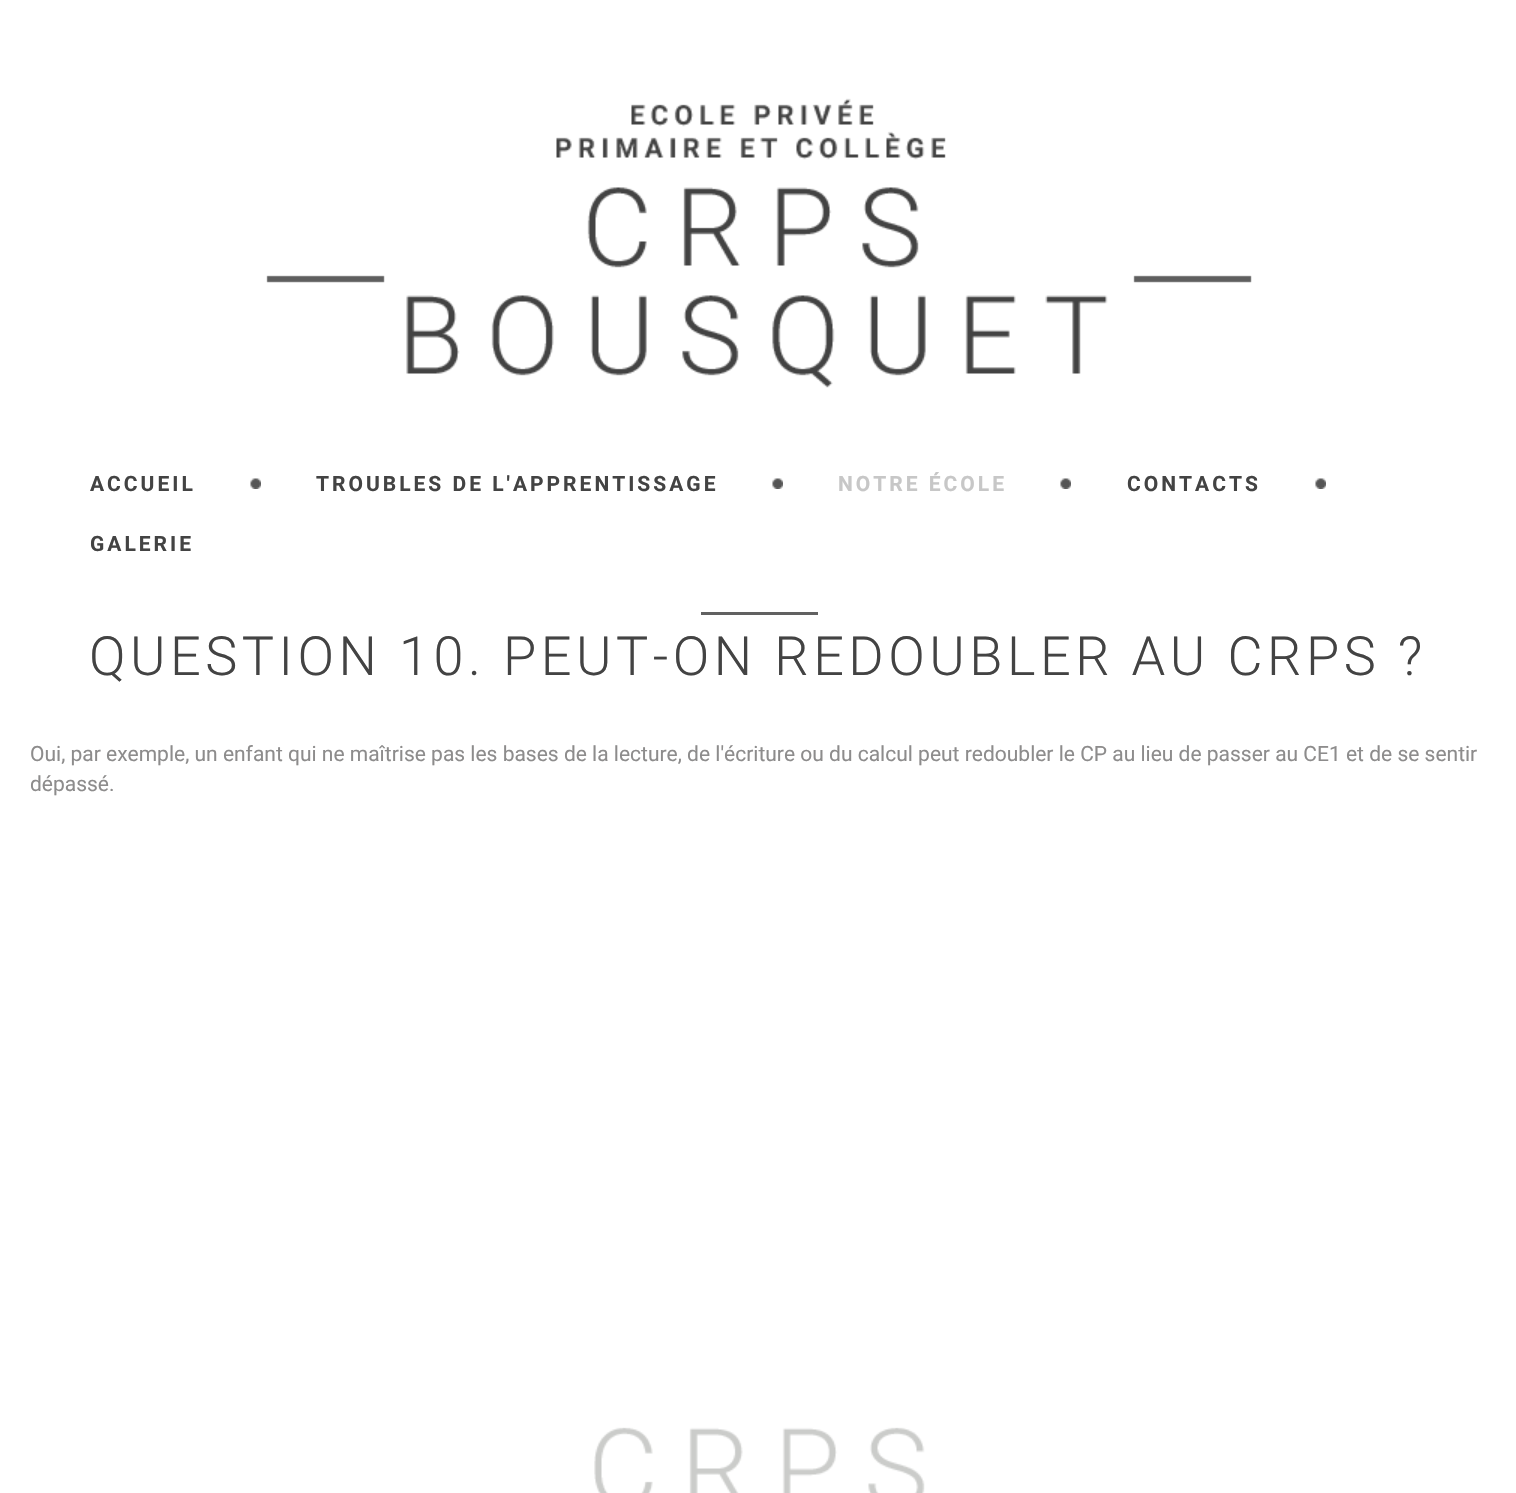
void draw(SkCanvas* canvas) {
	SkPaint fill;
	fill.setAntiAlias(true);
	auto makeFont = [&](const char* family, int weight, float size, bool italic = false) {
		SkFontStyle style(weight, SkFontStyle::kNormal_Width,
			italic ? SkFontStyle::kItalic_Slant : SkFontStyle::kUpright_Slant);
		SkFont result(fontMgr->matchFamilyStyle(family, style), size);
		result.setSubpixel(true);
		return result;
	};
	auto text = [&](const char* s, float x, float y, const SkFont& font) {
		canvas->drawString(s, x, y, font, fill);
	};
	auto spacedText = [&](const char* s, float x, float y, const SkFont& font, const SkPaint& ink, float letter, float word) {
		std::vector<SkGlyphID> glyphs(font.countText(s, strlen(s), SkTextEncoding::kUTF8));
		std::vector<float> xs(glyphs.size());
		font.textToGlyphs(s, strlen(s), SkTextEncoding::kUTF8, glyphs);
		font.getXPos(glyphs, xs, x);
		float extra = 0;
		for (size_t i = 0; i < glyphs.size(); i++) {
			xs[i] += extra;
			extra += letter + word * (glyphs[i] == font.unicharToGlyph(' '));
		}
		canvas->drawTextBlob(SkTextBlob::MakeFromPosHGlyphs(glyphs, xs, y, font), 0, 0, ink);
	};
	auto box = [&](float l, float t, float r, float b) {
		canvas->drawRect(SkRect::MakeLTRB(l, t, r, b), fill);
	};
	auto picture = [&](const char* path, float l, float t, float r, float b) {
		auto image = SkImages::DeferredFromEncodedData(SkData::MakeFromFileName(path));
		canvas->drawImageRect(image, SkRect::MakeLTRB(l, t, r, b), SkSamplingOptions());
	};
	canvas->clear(0xFFFFFFFF);
	picture("image0.png", 266, 98, 1252, 388);
	picture("image1.png", 250, 478, 261, 489);
	picture("image1.png", 772, 478, 783, 489);
	picture("image2.png", 1060, 478, 1071, 489);
	picture("image2.png", 1315, 478, 1326, 489);
	fill.setColor(0xFF616161);
	box(701, 612, 818, 615);
	picture("image3.png", 594, 1427, 925, 1493);
	auto font1 = makeFont("Roboto", 700, 21);
	fill.setColor(0xFF434343);
	spacedText("ACCUEIL", 90, 491, font1, fill, 3, 0);
	spacedText("TROUBLES DE L'APPRENTISSAGE", 316, 491, font1, fill, 3, 0);
	fill.setColor(0xFFC7C7C7);
	spacedText("NOTRE ÉCOLE", 838, 491, font1, fill, 3, 0);
	fill.setColor(0xFF434343);
	spacedText("CONTACTS", 1127, 491, font1, fill, 3, 0);
	spacedText("GALERIE", 90, 551, font1, fill, 3, 0);
	auto font2 = makeFont("Roboto", 300, 54);
	spacedText("QUESTION 10. PEUT-ON REDOUBLER AU CRPS ?", 89, 675, font2, fill, 4.5f, 0);
	auto font3 = makeFont("Roboto", 400, 21);
	fill.setColor(0xFF8D8C8C);
	text("Oui, par exemple, un enfant qui ne maîtrise pas les bases de la lecture, de l'écriture ou du calcul peut redoubler le CP au lieu de passer au CE1 et de se sentir", 30, 761, font3);
	text("dépassé.", 30, 791, font3);
}
